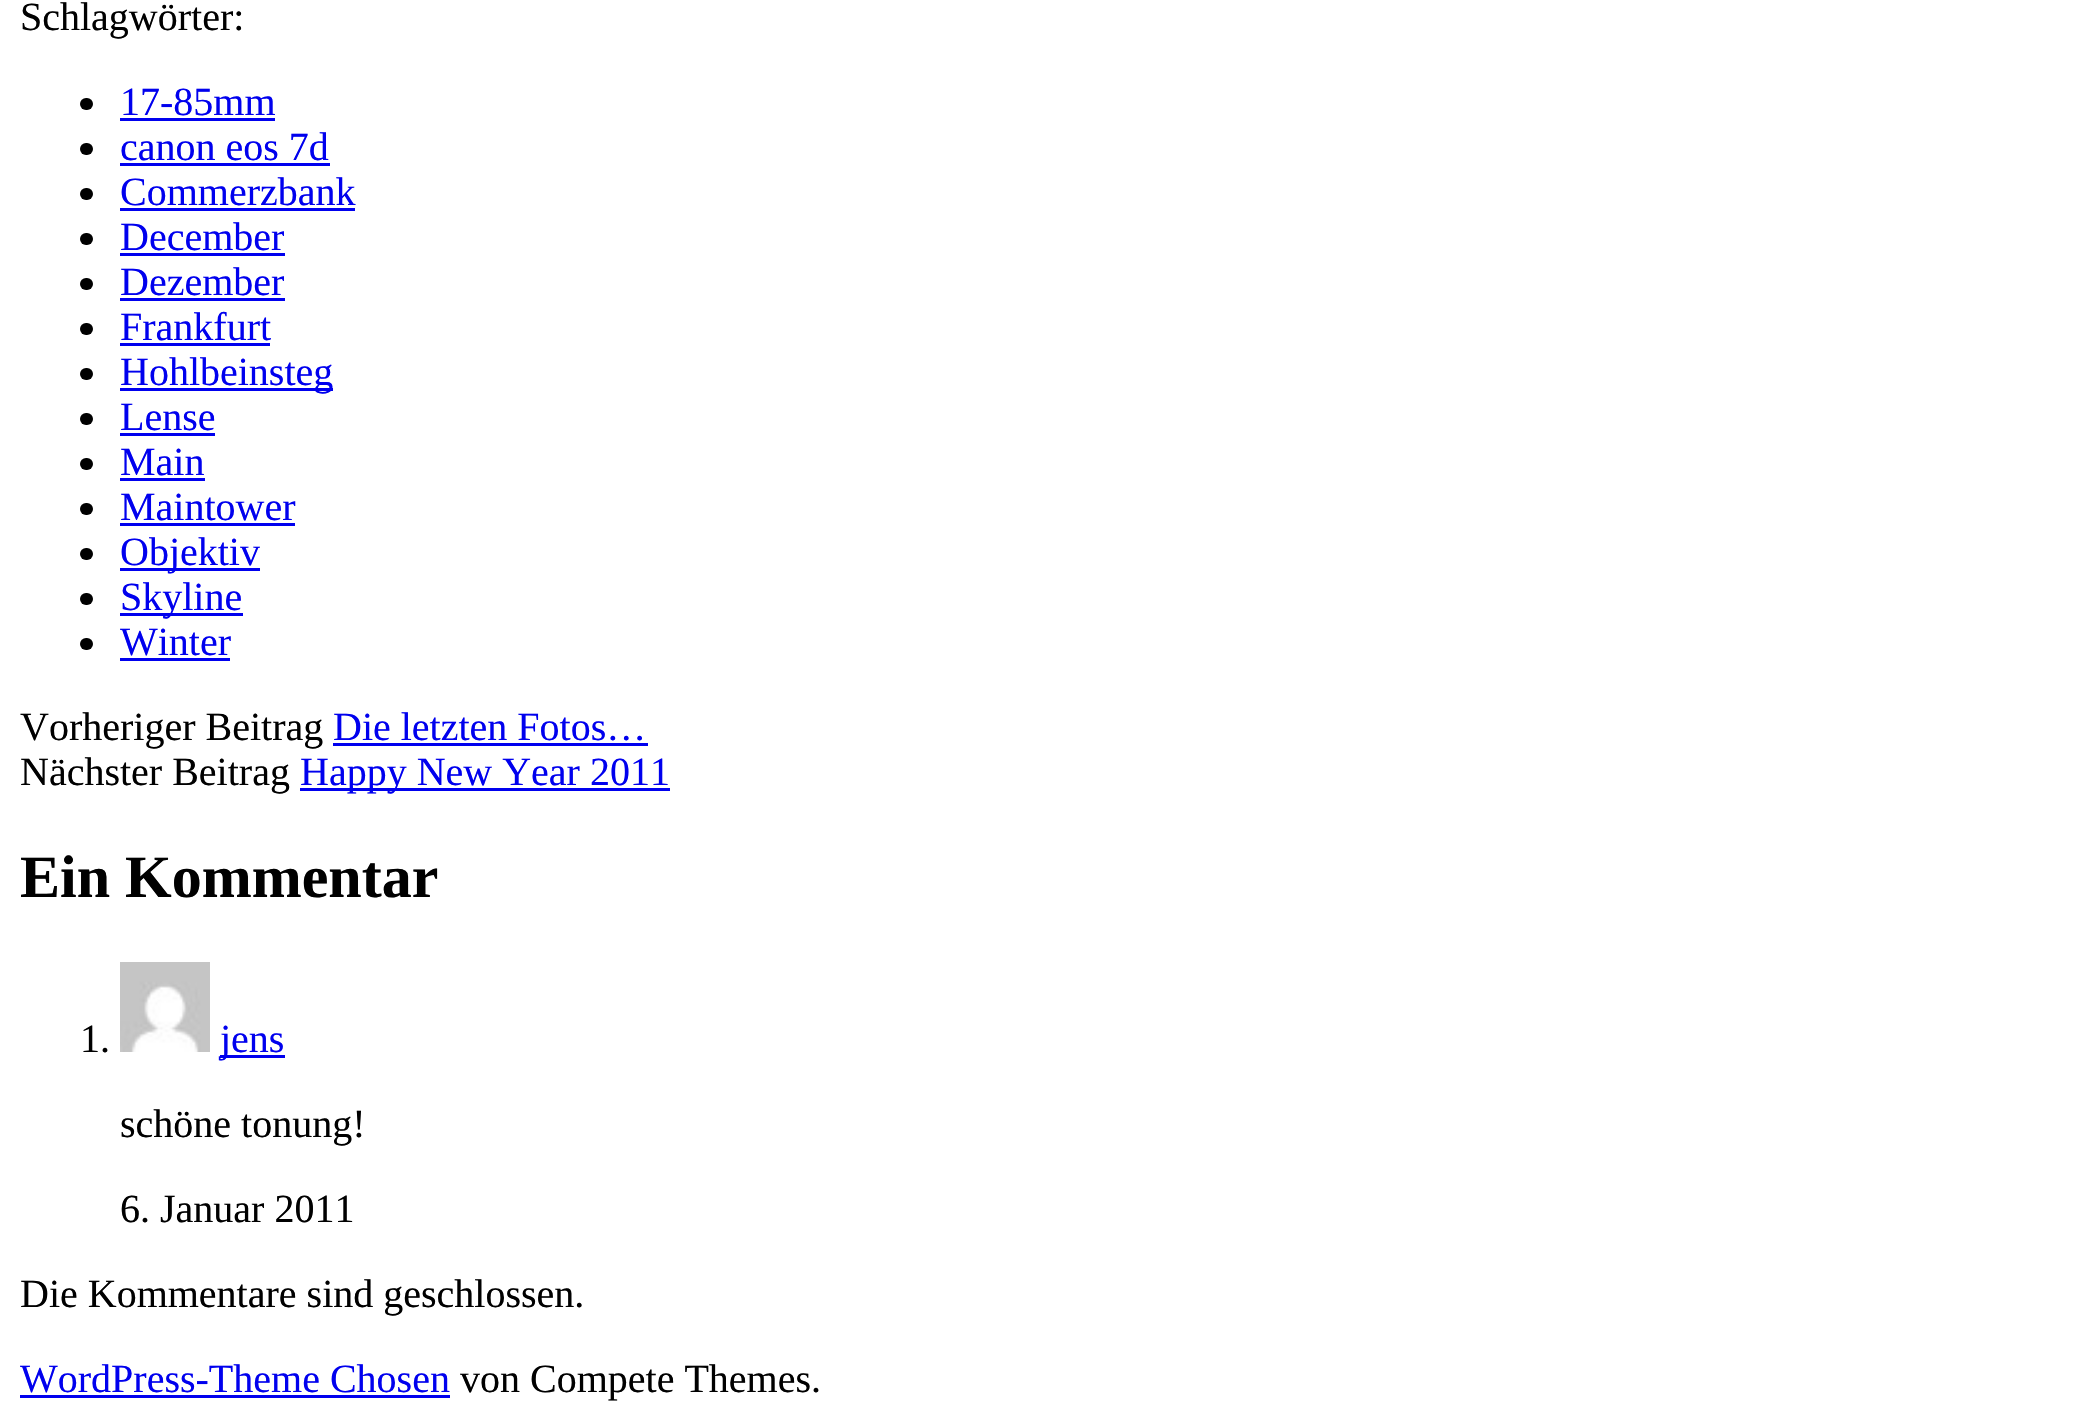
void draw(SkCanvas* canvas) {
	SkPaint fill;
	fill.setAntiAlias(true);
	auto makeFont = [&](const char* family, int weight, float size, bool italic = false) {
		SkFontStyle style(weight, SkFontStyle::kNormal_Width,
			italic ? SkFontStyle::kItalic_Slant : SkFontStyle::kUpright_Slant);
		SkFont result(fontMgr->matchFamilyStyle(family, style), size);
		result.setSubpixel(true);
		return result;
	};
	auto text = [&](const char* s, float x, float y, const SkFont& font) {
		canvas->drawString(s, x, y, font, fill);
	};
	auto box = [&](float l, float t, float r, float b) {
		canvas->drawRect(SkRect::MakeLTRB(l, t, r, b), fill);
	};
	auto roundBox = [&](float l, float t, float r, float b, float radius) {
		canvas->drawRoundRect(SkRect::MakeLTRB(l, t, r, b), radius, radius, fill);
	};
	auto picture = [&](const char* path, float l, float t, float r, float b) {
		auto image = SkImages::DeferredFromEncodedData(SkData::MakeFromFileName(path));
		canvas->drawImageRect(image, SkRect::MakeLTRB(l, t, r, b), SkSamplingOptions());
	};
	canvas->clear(0xFFFFFFFF);
	fill.setColor(0xFF000000);
	roundBox(80, 98, 93, 110, 6);
	fill.setColor(0xFF0000EE);
	box(120, 118, 275, 121);
	fill.setColor(0xFF000000);
	roundBox(80, 143, 93, 155, 6);
	fill.setColor(0xFF0000EE);
	box(120, 163, 330, 166);
	fill.setColor(0xFF000000);
	roundBox(80, 188, 93, 200, 6);
	fill.setColor(0xFF0000EE);
	box(120, 208, 355, 211);
	fill.setColor(0xFF000000);
	roundBox(80, 233, 93, 245, 6);
	fill.setColor(0xFF0000EE);
	box(120, 253, 285, 256);
	fill.setColor(0xFF000000);
	roundBox(80, 278, 93, 290, 6);
	fill.setColor(0xFF0000EE);
	box(120, 298, 285, 301);
	fill.setColor(0xFF000000);
	roundBox(80, 323, 93, 335, 6);
	fill.setColor(0xFF0000EE);
	box(120, 343, 270, 346);
	fill.setColor(0xFF000000);
	roundBox(80, 368, 93, 380, 6);
	fill.setColor(0xFF0000EE);
	box(120, 388, 333, 391);
	fill.setColor(0xFF000000);
	roundBox(80, 413, 93, 425, 6);
	fill.setColor(0xFF0000EE);
	box(120, 433, 215, 436);
	fill.setColor(0xFF000000);
	roundBox(80, 458, 93, 470, 6);
	fill.setColor(0xFF0000EE);
	box(120, 478, 205, 481);
	fill.setColor(0xFF000000);
	roundBox(80, 503, 93, 515, 6);
	fill.setColor(0xFF0000EE);
	box(120, 523, 295, 526);
	fill.setColor(0xFF000000);
	roundBox(80, 548, 93, 560, 6);
	fill.setColor(0xFF0000EE);
	box(120, 568, 260, 571);
	fill.setColor(0xFF000000);
	roundBox(80, 593, 93, 605, 6);
	fill.setColor(0xFF0000EE);
	box(120, 613, 243, 616);
	fill.setColor(0xFF000000);
	roundBox(80, 638, 93, 650, 6);
	fill.setColor(0xFF0000EE);
	box(120, 658, 230, 661);
	box(333, 743, 648, 746);
	box(300, 788, 670, 791);
	picture("image0.png", 120, 962, 210, 1052);
	box(220, 1055, 285, 1058);
	box(20, 1395, 450, 1398);
	auto font1 = makeFont("Liberation Serif", 400, 40);
	fill.setColor(0xFF000000);
	text("Schlagwörter:", 20, 30, font1);
	fill.setColor(0xFF0000EE);
	text("17-85mm", 120, 115, font1);
	text("canon eos 7d", 120, 160, font1);
	text("Commerzbank", 120, 205, font1);
	text("December", 120, 250, font1);
	text("Dezember", 120, 295, font1);
	text("Frankfurt", 120, 340, font1);
	text("Hohlbeinsteg", 120, 385, font1);
	text("Lense", 120, 430, font1);
	text("Main", 120, 475, font1);
	text("Maintower", 120, 520, font1);
	text("Objektiv", 120, 565, font1);
	text("Skyline", 120, 610, font1);
	text("Winter", 120, 655, font1);
	fill.setColor(0xFF000000);
	text("Vorheriger Beitrag", 20, 740, font1);
	fill.setColor(0xFF0000EE);
	text("Die letzten Fotos…", 333, 740, font1);
	fill.setColor(0xFF000000);
	text("Nächster Beitrag", 20, 785, font1);
	fill.setColor(0xFF0000EE);
	text("Happy New Year 2011", 300, 785, font1);
	auto font2 = makeFont("Liberation Serif", 700, 60);
	fill.setColor(0xFF000000);
	text("Ein Kommentar", 20, 897, font2);
	text("1.", 80, 1052, font1);
	fill.setColor(0xFF0000EE);
	text("jens", 220, 1052, font1);
	fill.setColor(0xFF000000);
	text("schöne tonung!", 120, 1137, font1);
	text("6. Januar 2011", 120, 1222, font1);
	text("Die Kommentare sind geschlossen.", 20, 1307, font1);
	fill.setColor(0xFF0000EE);
	text("WordPress-Theme Chosen", 20, 1392, font1);
	fill.setColor(0xFF000000);
	text("von Compete Themes.", 460, 1392, font1);
}
